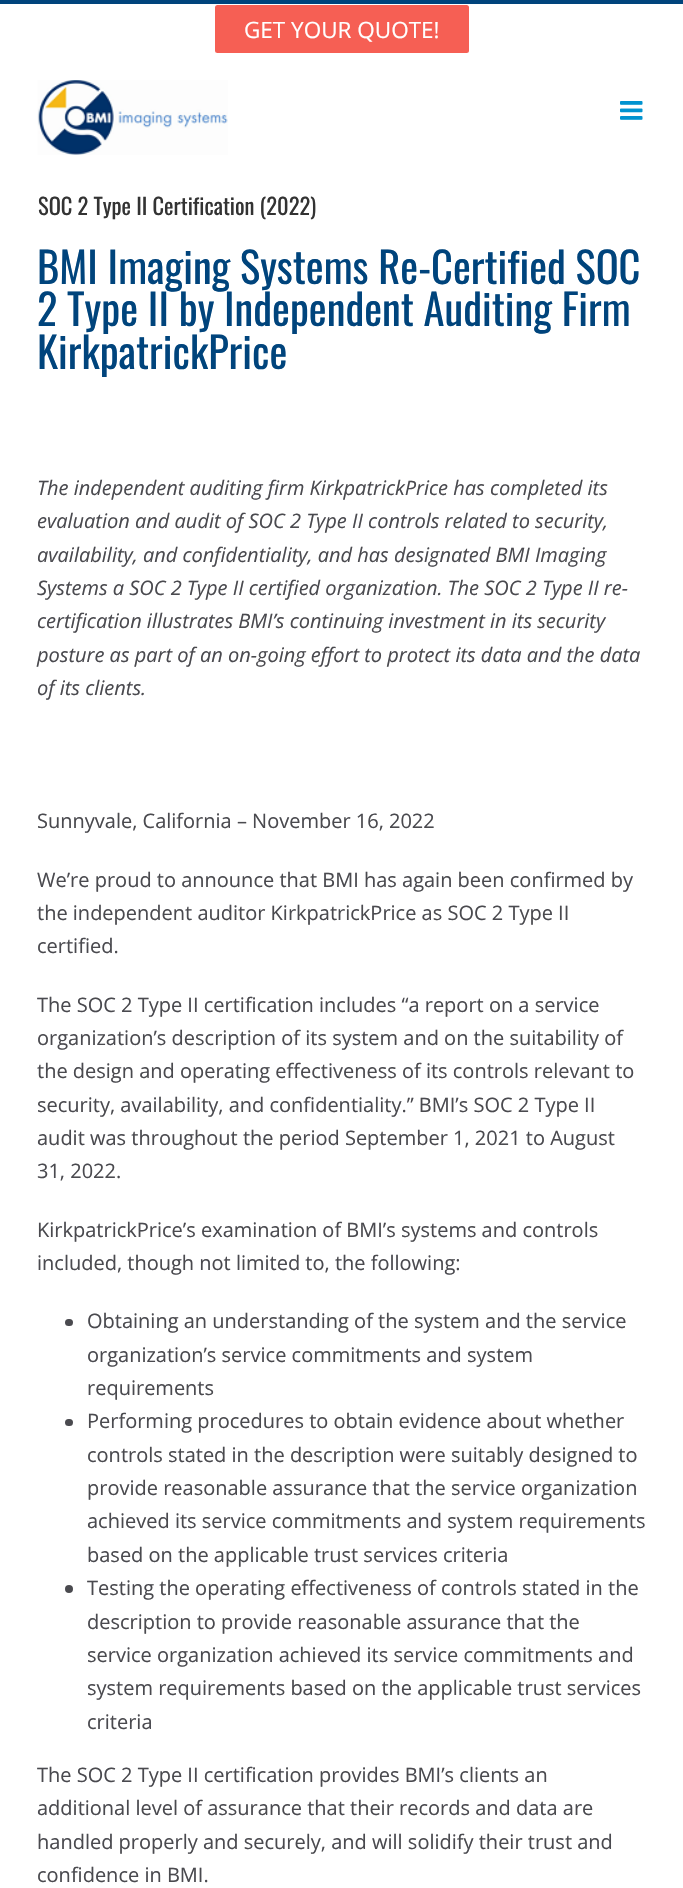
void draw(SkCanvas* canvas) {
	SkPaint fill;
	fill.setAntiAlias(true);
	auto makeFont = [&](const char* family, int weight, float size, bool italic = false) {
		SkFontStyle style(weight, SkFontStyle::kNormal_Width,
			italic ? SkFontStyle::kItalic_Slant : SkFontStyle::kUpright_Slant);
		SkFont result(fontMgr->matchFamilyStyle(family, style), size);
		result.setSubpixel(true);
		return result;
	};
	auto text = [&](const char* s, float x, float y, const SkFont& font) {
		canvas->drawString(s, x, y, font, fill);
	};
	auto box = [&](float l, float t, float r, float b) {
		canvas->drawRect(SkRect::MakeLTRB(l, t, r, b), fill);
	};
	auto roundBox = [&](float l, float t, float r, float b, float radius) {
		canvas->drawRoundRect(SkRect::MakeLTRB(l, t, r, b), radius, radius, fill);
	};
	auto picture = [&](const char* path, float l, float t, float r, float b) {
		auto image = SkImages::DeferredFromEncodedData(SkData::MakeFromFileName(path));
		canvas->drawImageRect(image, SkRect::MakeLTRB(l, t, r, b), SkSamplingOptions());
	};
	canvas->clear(0xFFFFFFFF);
	fill.setColor(0xFF00447C);
	box(0, 0, 683, 4);
	fill.setColor(0xFFF65F54);
	roundBox(215, 5, 469, 53, 2.5f);
	picture("image0.png", 37, 80, 228, 155);
	picture("image1.png", 620, 101, 643, 120);
	fill.setColor(0xFF4A4A4F);
	roundBox(65, 1319, 73, 1326, 3.5f);
	roundBox(65, 1419, 73, 1426, 3.5f);
	canvas->drawCircle(69, 1589, 4, fill);
	auto font1 = makeFont("Open Sans", 400, 22.5f);
	fill.setColor(0xFFFFFFFF);
	text("GET YOUR QUOTE!", 244, 38, font1);
	auto font2 = makeFont("Oswald", 400, 22.5f);
	fill.setColor(0xFF333333);
	text("SOC 2 Type II Certification (2022)", 38, 215, font2);
	auto font3 = makeFont("Oswald", 400, 42.5f);
	fill.setColor(0xFF00447C);
	text("BMI Imaging Systems Re-Certified SOC", 37, 284, font3);
	text("2 Type II by Independent Auditing Firm", 37, 326, font3);
	text("KirkpatrickPrice", 37, 369, font3);
	auto font4 = makeFont("Open Sans", 400, 20, true);
	fill.setColor(0xFF4A4A4F);
	text("The independent auditing firm KirkpatrickPrice has completed its", 37, 495, font4);
	text("evaluation and audit of SOC 2 Type II controls related to security,", 37, 528, font4);
	text("availability, and confidentiality, and has designated BMI Imaging", 37, 562, font4);
	text("Systems a SOC 2 Type II certified organization. The SOC 2 Type II re-", 37, 595, font4);
	text("certification illustrates BMI’s continuing investment in its security", 37, 628, font4);
	text("posture as part of an on-going effort to protect its data and the data", 37, 662, font4);
	text("of its clients.", 37, 695, font4);
	auto font5 = makeFont("Open Sans", 400, 20);
	text("Sunnyvale, California – November 16, 2022", 37, 828, font5);
	text("We’re proud to announce that BMI has again been confirmed by", 37, 887, font5);
	text("the independent auditor KirkpatrickPrice as SOC 2 Type II", 37, 920, font5);
	text("certified.", 37, 953, font5);
	text("The SOC 2 Type II certification includes “a report on a service", 37, 1012, font5);
	text("organization’s description of its system and on the suitability of", 37, 1045, font5);
	text("the design and operating effectiveness of its controls relevant to", 37, 1078, font5);
	text("security, availability, and confidentiality.” BMI’s SOC 2 Type II", 37, 1112, font5);
	text("audit was throughout the period September 1, 2021 to August", 37, 1145, font5);
	text("31, 2022.", 37, 1178, font5);
	text("KirkpatrickPrice’s examination of BMI’s systems and controls", 37, 1237, font5);
	text("included, though not limited to, the following:", 37, 1270, font5);
	text("Obtaining an understanding of the system and the service", 87, 1328, font5);
	text("organization’s service commitments and system", 87, 1362, font5);
	text("requirements", 87, 1395, font5);
	text("Performing procedures to obtain evidence about whether", 87, 1428, font5);
	text("controls stated in the description were suitably designed to", 87, 1462, font5);
	text("provide reasonable assurance that the service organization", 87, 1495, font5);
	text("achieved its service commitments and system requirements", 87, 1528, font5);
	text("based on the applicable trust services criteria", 87, 1562, font5);
	text("Testing the operating effectiveness of controls stated in the", 87, 1595, font5);
	text("description to provide reasonable assurance that the", 87, 1629, font5);
	text("service organization achieved its service commitments and", 87, 1662, font5);
	text("system requirements based on the applicable trust services", 87, 1695, font5);
	text("criteria", 87, 1729, font5);
	text("The SOC 2 Type II certification provides BMI’s clients an", 37, 1782, font5);
	text("additional level of assurance that their records and data are", 37, 1815, font5);
	text("handled properly and securely, and will solidify their trust and", 37, 1849, font5);
	text("confidence in BMI.", 37, 1882, font5);
}
